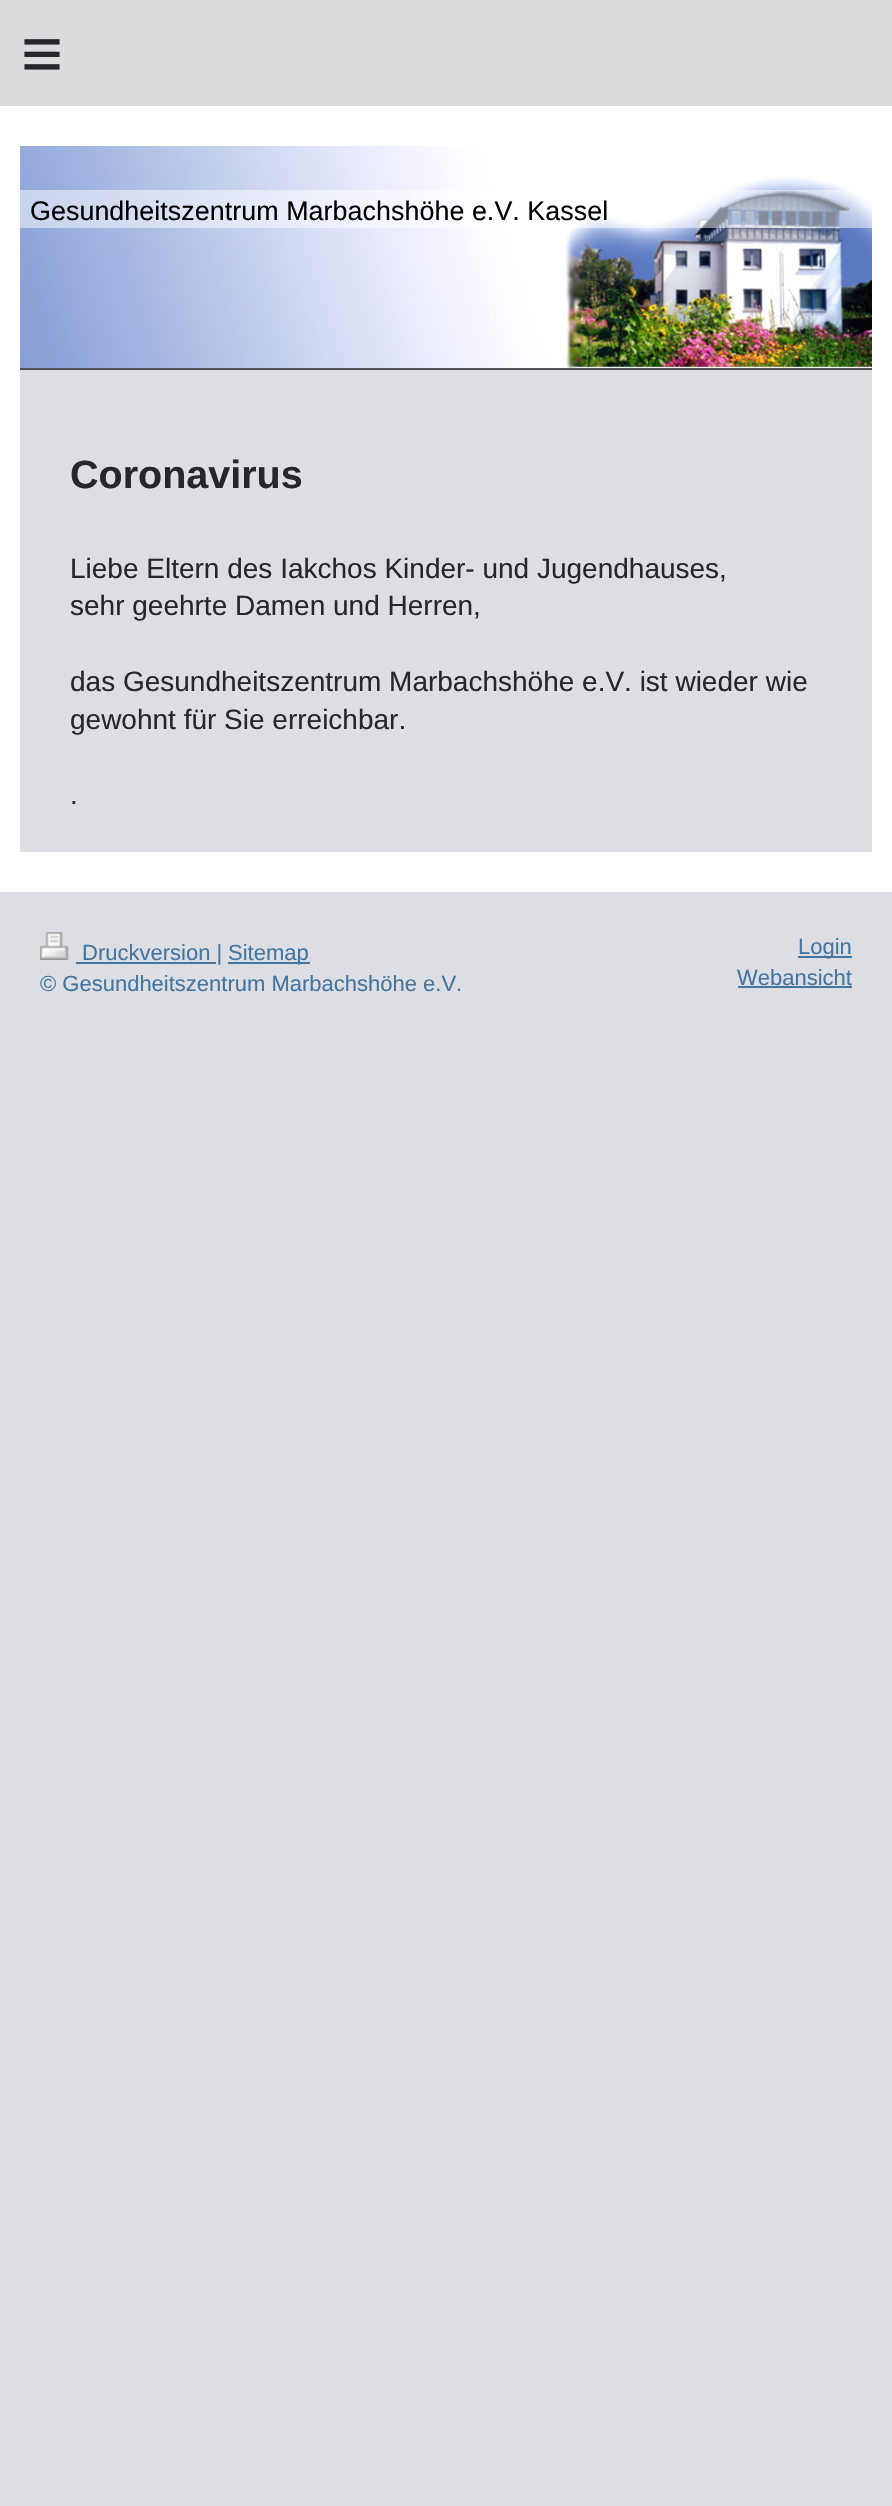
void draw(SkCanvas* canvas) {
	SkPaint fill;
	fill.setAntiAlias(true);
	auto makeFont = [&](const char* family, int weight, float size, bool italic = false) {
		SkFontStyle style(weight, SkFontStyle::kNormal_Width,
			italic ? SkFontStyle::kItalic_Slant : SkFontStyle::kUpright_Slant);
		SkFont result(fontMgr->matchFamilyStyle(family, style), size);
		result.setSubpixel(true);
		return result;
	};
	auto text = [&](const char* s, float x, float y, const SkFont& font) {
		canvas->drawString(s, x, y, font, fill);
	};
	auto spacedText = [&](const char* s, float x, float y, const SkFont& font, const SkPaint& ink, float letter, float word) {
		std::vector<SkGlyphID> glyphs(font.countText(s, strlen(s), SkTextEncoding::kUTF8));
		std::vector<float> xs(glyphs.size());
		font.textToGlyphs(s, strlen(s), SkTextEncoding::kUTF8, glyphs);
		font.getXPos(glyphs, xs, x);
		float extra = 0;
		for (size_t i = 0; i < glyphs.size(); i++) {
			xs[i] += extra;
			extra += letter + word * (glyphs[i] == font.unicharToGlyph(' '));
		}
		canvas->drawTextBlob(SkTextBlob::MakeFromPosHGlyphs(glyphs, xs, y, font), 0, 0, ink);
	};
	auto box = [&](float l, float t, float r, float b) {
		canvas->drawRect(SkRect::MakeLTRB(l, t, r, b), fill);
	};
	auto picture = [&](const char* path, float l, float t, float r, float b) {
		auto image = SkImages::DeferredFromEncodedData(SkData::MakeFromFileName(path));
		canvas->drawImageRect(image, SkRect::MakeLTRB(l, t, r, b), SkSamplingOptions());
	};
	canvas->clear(0xFFDDDEE4);
	fill.setColor(0xFFDCDCDF);
	box(0, 0, 892, 106);
	fill.setColor(0xFFFFFFFF);
	box(0, 106, 892, 892);
	picture("image0.png", 20, 146, 872, 368);
	fill.setColor(0x80FFFFFF);
	box(20, 190, 872, 228);
	fill.setColor(0xFF515157);
	box(20, 368, 872, 370);
	fill.setColor(0xFFDDDEE4);
	box(20, 370, 872, 852);
	picture("image1.png", 40, 932, 69, 960);
	fill.setColor(0xFF4375A0);
	box(76, 962, 216, 964);
	box(228, 962, 310, 964);
	box(798, 956, 852, 958);
	box(738, 986, 852, 988);
	auto font1 = makeFont("Liberation Sans", 400, 72);
	fill.setColor(0xFF26272B);
	spacedText("≡", 21, 78, font1, fill, 21, 0);
	auto font2 = makeFont("Liberation Sans", 400, 26.85f);
	fill.setColor(0xFF000000);
	spacedText("Gesundheitszentrum Marbachshöhe e.V. Kassel", 30, 220, font2, fill, 0.05f, 0);
	auto font3 = makeFont("Liberation Sans", 700, 39.5f);
	fill.setColor(0xFF26272B);
	text("Coronavirus", 70, 488, font3);
	auto font4 = makeFont("Liberation Sans", 400, 28);
	text("Liebe Eltern des Iakchos Kinder- und Jugendhauses,", 70, 578, font4);
	text("sehr geehrte Damen und Herren,", 70, 615, font4);
	text("das Gesundheitszentrum Marbachshöhe e.V. ist wieder wie", 70, 691, font4);
	text("gewohnt für Sie erreichbar.", 70, 729, font4);
	text(".", 70, 804, font4);
	auto font5 = makeFont("Liberation Sans", 400, 22);
	fill.setColor(0xFF4375A0);
	text("Druckversion |", 82, 960, font5);
	text("Sitemap", 228, 960, font5);
	text("© Gesundheitszentrum Marbachshöhe e.V.", 40, 991, font5);
	text("Login", 798, 954, font5);
	text("Webansicht", 737, 985, font5);
}
